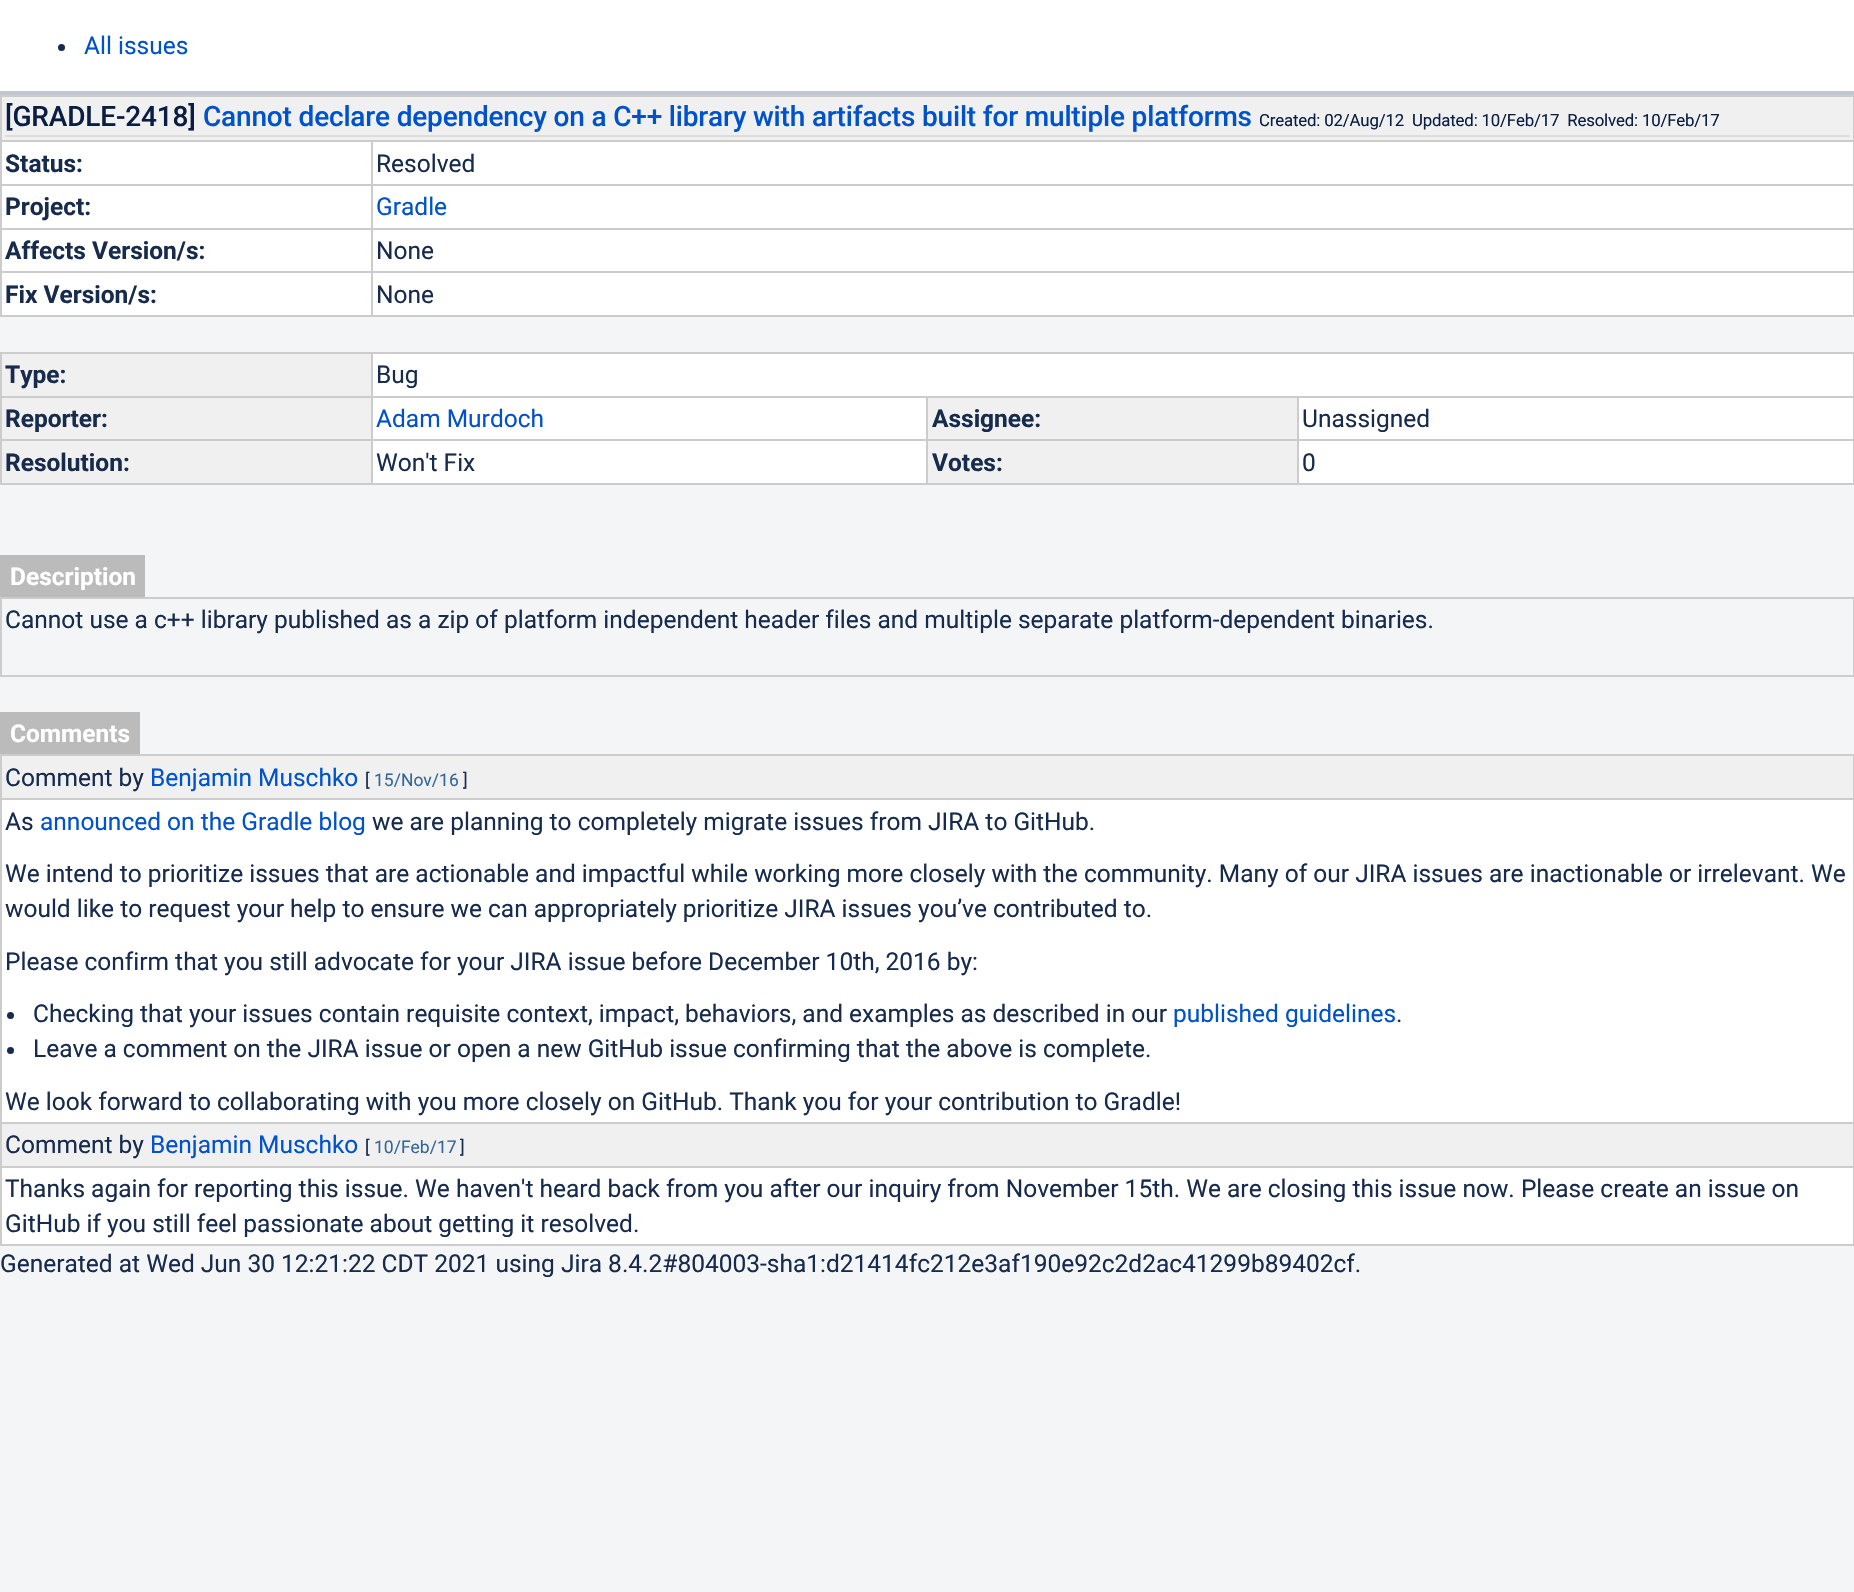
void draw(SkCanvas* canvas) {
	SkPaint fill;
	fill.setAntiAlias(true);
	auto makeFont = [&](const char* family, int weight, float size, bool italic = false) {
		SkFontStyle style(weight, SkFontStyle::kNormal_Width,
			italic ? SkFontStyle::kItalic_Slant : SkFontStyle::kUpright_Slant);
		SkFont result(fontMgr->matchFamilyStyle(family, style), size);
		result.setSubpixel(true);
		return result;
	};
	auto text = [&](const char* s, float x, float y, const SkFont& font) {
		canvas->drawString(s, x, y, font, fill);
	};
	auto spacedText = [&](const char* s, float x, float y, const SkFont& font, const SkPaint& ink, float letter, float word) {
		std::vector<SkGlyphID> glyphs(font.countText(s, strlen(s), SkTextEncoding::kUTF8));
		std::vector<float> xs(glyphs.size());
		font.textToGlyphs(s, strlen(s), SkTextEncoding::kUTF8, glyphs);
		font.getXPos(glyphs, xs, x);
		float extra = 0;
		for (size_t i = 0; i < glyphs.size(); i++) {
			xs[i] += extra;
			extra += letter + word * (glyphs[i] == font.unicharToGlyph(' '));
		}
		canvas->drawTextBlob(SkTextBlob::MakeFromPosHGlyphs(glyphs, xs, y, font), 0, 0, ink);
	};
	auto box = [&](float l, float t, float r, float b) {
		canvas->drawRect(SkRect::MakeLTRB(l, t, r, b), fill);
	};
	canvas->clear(0xFFF4F5F7);
	fill.setColor(0xFFFFFFFF);
	box(0, 0, 1854, 91);
	fill.setColor(0xFFC1C7D0);
	box(0, 91, 1854, 95);
	fill.setColor(0xFF172B4D);
	canvas->drawCircle(61.5f, 47.5f, 3.5f, fill);
	fill.setColor(0xFFFFFFFF);
	box(2, 142, 1853, 315);
	fill.setColor(0xFFF0F0F0);
	box(2, 97, 1853, 140);
	fill.setColor(0xFFCCCCCC);
	box(0, 95, 1854, 97);
	box(371, 140, 1854, 142);
	box(371, 184, 1854, 186);
	box(371, 228, 1854, 230);
	box(371, 271, 1854, 273);
	box(1853, 271, 1854, 317);
	box(1853, 228, 1854, 273);
	box(1853, 184, 1854, 229);
	box(1853, 140, 1854, 186);
	box(1853, 95, 1854, 142);
	box(371, 315, 1854, 317);
	box(371, 271, 373, 317);
	box(0, 271, 373, 273);
	box(371, 228, 373, 273);
	box(0, 228, 373, 230);
	box(371, 184, 373, 229);
	box(0, 184, 373, 186);
	box(371, 140, 373, 186);
	box(0, 140, 373, 142);
	box(0, 315, 373, 317);
	box(0, 271, 2, 317);
	box(0, 228, 2, 273);
	box(0, 184, 2, 229);
	box(0, 140, 2, 186);
	box(0, 95, 2, 142);
	fill.setColor(0xFFDDDDDD);
	box(5, 135, 1850, 137);
	fill.setColor(0xFFFFFFFF);
	box(373, 354, 1853, 483);
	fill.setColor(0xFFF0F0F0);
	box(2, 354, 371, 396);
	fill.setColor(0xFFCCCCCC);
	box(371, 352, 1854, 354);
	box(1297, 396, 1854, 398);
	box(1297, 439, 1854, 441);
	box(1853, 439, 1854, 485);
	box(1297, 483, 1854, 485);
	box(1297, 439, 1299, 485);
	box(926, 439, 1299, 441);
	box(1297, 396, 1299, 441);
	box(926, 396, 1299, 398);
	box(926, 483, 1299, 485);
	box(926, 439, 928, 485);
	box(371, 439, 928, 441);
	box(926, 396, 928, 441);
	box(371, 396, 928, 398);
	box(371, 483, 928, 485);
	box(371, 439, 373, 485);
	box(0, 439, 373, 441);
	box(371, 396, 373, 441);
	box(0, 396, 373, 398);
	box(371, 352, 373, 397);
	box(0, 352, 373, 354);
	box(0, 483, 373, 485);
	box(0, 439, 2, 485);
	box(0, 396, 2, 441);
	box(0, 352, 2, 397);
	box(1853, 396, 1854, 441);
	box(1853, 352, 1854, 397);
	fill.setColor(0xFFF0F0F0);
	box(2, 398, 371, 439);
	box(928, 398, 1297, 439);
	box(2, 441, 371, 483);
	box(928, 441, 1297, 483);
	fill.setColor(0xFFBBBBBB);
	box(0, 555, 145, 597);
	fill.setStyle(SkPaint::kStroke_Style);
	fill.setStrokeWidth(2);
	fill.setColor(0xFFCCCCCC);
	canvas->drawRect(SkRect::MakeLTRB(1, 598, 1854, 676), fill);
	fill.setStyle(SkPaint::kFill_Style);
	fill.setColor(0xFFBBBBBB);
	box(0, 712, 140, 754);
	fill.setColor(0xFFFFFFFF);
	box(2, 800, 1853, 1244);
	fill.setColor(0xFFF0F0F0);
	box(2, 756, 1853, 798);
	fill.setColor(0xFFCCCCCC);
	box(0, 754, 1854, 756);
	box(0, 798, 1854, 800);
	box(0, 1122, 1854, 1124);
	box(0, 1166, 1854, 1168);
	box(1853, 1166, 1854, 1246);
	box(1853, 1122, 1854, 1167);
	box(1853, 798, 1854, 1124);
	box(1853, 754, 1854, 800);
	box(0, 1244, 1854, 1246);
	box(0, 1166, 2, 1246);
	box(0, 1122, 2, 1167);
	box(0, 798, 2, 1124);
	box(0, 754, 2, 800);
	fill.setColor(0xFF172B4D);
	canvas->drawCircle(10.5f, 1015.5f, 3.5f, fill);
	canvas->drawCircle(10.5f, 1050.5f, 3.5f, fill);
	fill.setColor(0xFFF0F0F0);
	box(2, 1124, 1853, 1166);
	auto font1 = makeFont("Roboto", 400, 24.5f);
	fill.setColor(0xFF0052CC);
	text("All issues", 84, 54, font1);
	auto font2 = makeFont("Roboto", 500, 28);
	fill.setColor(0xFF091E42);
	spacedText("[GRADLE-2418]", 5, 126, font2, fill, -0.17f, 0);
	fill.setColor(0xFF0052CC);
	spacedText("Cannot declare dependency on a C++ library with artifacts built for multiple platforms", 203, 126, font2, fill, -0.17f, 0);
	auto font3 = makeFont("Roboto", 400, 16.8f);
	fill.setColor(0xFF091E42);
	spacedText("Created: 02/Aug/12  Updated: 10/Feb/17  Resolved: 10/Feb/17", 1259, 126, font3, fill, -0.17f, 0);
	auto font4 = makeFont("Roboto", 700, 24.5f);
	fill.setColor(0xFF172B4D);
	text("Status:", 5, 172, font4);
	text("Resolved", 376, 172, font1);
	text("Project:", 5, 215, font4);
	fill.setColor(0xFF0052CC);
	text("Gradle", 376, 215, font1);
	fill.setColor(0xFF172B4D);
	text("Affects Version/s:", 5, 259, font4);
	text("None", 376, 259, font1);
	text("Fix Version/s:", 5, 303, font4);
	text("None", 376, 303, font1);
	text("Type:", 5, 383, font4);
	text("Bug", 376, 383, font1);
	text("Reporter:", 5, 427, font4);
	fill.setColor(0xFF0052CC);
	text("Adam Murdoch", 376, 427, font1);
	fill.setColor(0xFF172B4D);
	text("Assignee:", 932, 427, font4);
	text("Unassigned", 1302, 427, font1);
	text("Resolution:", 5, 471, font4);
	text("Won't Fix", 376, 471, font1);
	text("Votes:", 932, 471, font4);
	text("0", 1302, 471, font1);
	fill.setColor(0xFFFFFFFF);
	text("Description", 10, 585, font4);
	fill.setColor(0xFF172B4D);
	text("Cannot use a c++ library published as a zip of platform independent header files and multiple separate platform-dependent binaries.", 5, 628, font1);
	fill.setColor(0xFFFFFFFF);
	text("Comments", 10, 742, font4);
	fill.setColor(0xFF172B4D);
	text("Comment by", 5, 786, font1);
	fill.setColor(0xFF0052CC);
	text("Benjamin Muschko", 150, 786, font1);
	auto font5 = makeFont("Roboto", 400, 17.5f);
	fill.setColor(0xFF172B4D);
	text("[", 365, 786, font5);
	fill.setColor(0xFF336699);
	text("15/Nov/16", 374, 786, font5);
	fill.setColor(0xFF172B4D);
	text("]", 463, 786, font5);
	text("As", 5, 830, font1);
	fill.setColor(0xFF0052CC);
	text("announced on the Gradle blog", 40, 830, font1);
	fill.setColor(0xFF172B4D);
	text("we are planning to completely migrate issues from JIRA to GitHub.", 372, 830, font1);
	text("We intend to prioritize issues that are actionable and impactful while working more closely with the community. Many of our JIRA issues are inactionable or irrelevant. We", 5, 882, font1);
	text("would like to request your help to ensure we can appropriately prioritize JIRA issues you’ve contributed to.", 5, 917, font1);
	text("Please confirm that you still advocate for your JIRA issue before December 10th, 2016 by:", 5, 970, font1);
	text("Checking that your issues contain requisite context, impact, behaviors, and examples as described in our", 33, 1022, font1);
	fill.setColor(0xFF0052CC);
	text("published guidelines", 1173, 1022, font1);
	fill.setColor(0xFF172B4D);
	text(".", 1396, 1022, font1);
	text("Leave a comment on the JIRA issue or open a new GitHub issue confirming that the above is complete.", 33, 1057, font1);
	text("We look forward to collaborating with you more closely on GitHub. Thank you for your contribution to Gradle!", 5, 1110, font1);
	text("Comment by", 5, 1153, font1);
	fill.setColor(0xFF0052CC);
	text("Benjamin Muschko", 150, 1153, font1);
	fill.setColor(0xFF172B4D);
	text("[", 365, 1153, font5);
	fill.setColor(0xFF336699);
	text("10/Feb/17", 374, 1153, font5);
	fill.setColor(0xFF172B4D);
	text("]", 460, 1153, font5);
	text("Thanks again for reporting this issue. We haven't heard back from you after our inquiry from November 15th. We are closing this issue now. Please create an issue on", 5, 1197, font1);
	text("GitHub if you still feel passionate about getting it resolved.", 5, 1232, font1);
	text("Generated at Wed Jun 30 12:21:22 CDT 2021 using Jira 8.4.2#804003-sha1:d21414fc212e3af190e92c2d2ac41299b89402cf.", 0, 1272, font1);
}
